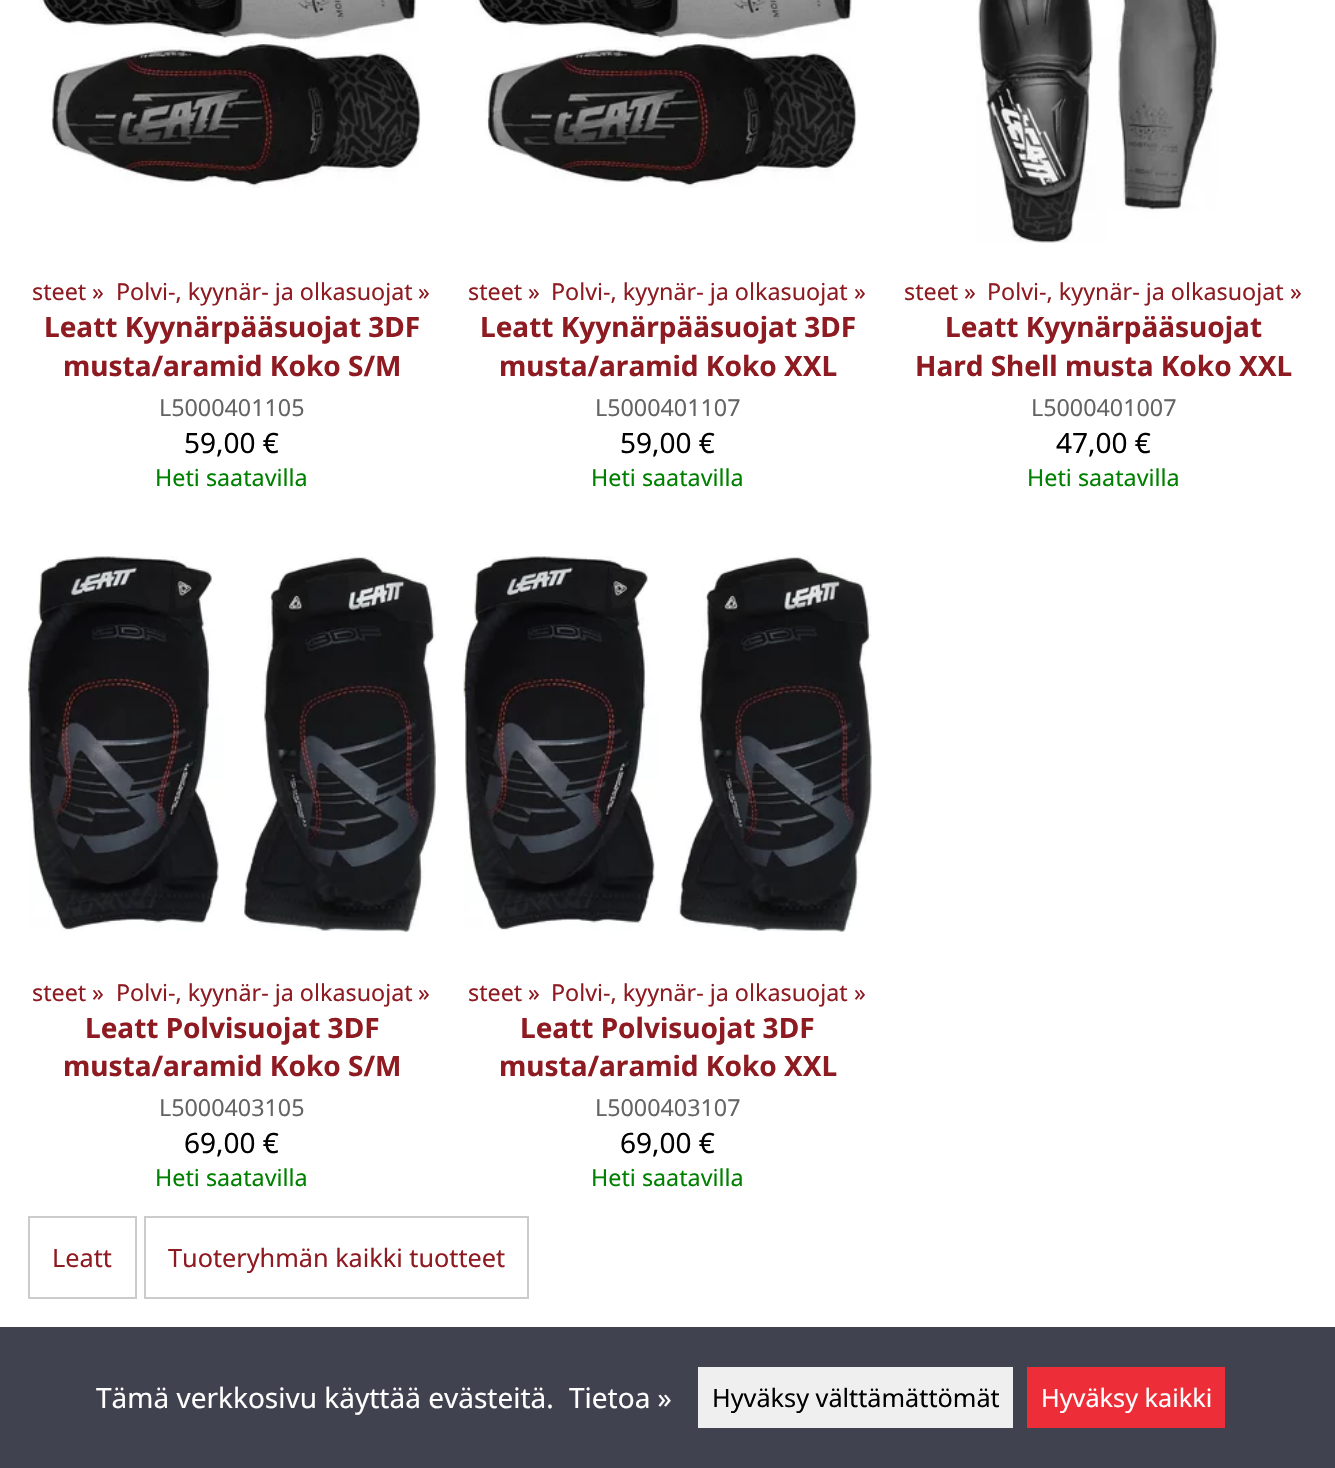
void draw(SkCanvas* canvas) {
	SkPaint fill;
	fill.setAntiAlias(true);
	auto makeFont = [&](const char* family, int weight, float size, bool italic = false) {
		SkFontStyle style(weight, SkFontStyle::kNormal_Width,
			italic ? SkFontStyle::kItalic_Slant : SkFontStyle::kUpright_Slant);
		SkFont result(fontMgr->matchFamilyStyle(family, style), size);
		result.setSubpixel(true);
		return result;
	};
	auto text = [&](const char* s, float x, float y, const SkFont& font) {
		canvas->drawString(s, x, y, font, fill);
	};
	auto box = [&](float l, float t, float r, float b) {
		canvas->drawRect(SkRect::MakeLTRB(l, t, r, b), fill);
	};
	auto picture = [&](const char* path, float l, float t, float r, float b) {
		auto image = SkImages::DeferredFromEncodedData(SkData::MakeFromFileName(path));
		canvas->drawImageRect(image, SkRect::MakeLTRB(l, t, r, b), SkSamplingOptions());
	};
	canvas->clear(0xFFFFFFFF);
	picture("image0.png", 39, 0, 421, 188);
	picture("image1.png", 475, 0, 857, 188);
	picture("image2.png", 976, 0, 1220, 243);
	picture("image3.png", 28, 556, 436, 932);
	picture("image4.png", 463, 556, 872, 932);
	fill.setStyle(SkPaint::kStroke_Style);
	fill.setStrokeWidth(2);
	fill.setColor(0xFFCCCCCC);
	canvas->drawRect(SkRect::MakeLTRB(29, 1217, 136, 1298), fill);
	canvas->drawRect(SkRect::MakeLTRB(145, 1217, 528, 1298), fill);
	fill.setStyle(SkPaint::kFill_Style);
	fill.setColor(0xFF41424F);
	box(0, 1327, 1335, 1468);
	fill.setColor(0xFFEFEFEF);
	box(698, 1367, 1013, 1428);
	fill.setColor(0xFFED2E38);
	box(1027, 1367, 1225, 1428);
	auto font1 = makeFont("Noto Sans", 400, 23.3f);
	fill.setColor(0xFF8E1B21);
	text("steet", 32, 300, font1);
	text("»", 92, 300, font1);
	text("Polvi-, kyynär- ja olkasuojat", 116, 300, font1);
	text("»", 418, 300, font1);
	auto font2 = makeFont("Noto Sans", 700, 28);
	text("Leatt Kyynärpääsuojat 3DF", 44, 337, font2);
	text("musta/aramid Koko S/M", 63, 376, font2);
	fill.setColor(0xFF646464);
	text("L5000401105", 159, 416, font1);
	auto font3 = makeFont("Noto Sans", 400, 28);
	fill.setColor(0xFF000000);
	text("59,00 €", 184, 453, font3);
	fill.setColor(0xFF008000);
	text("Heti saatavilla", 155, 486, font1);
	fill.setColor(0xFF8E1B21);
	text("steet", 468, 300, font1);
	text("»", 528, 300, font1);
	text("Polvi-, kyynär- ja olkasuojat", 551, 300, font1);
	text("»", 854, 300, font1);
	text("Leatt Kyynärpääsuojat 3DF", 480, 337, font2);
	text("musta/aramid Koko XXL", 499, 376, font2);
	fill.setColor(0xFF646464);
	text("L5000401107", 595, 416, font1);
	fill.setColor(0xFF000000);
	text("59,00 €", 620, 453, font3);
	fill.setColor(0xFF008000);
	text("Heti saatavilla", 591, 486, font1);
	fill.setColor(0xFF8E1B21);
	text("steet", 904, 300, font1);
	text("»", 964, 300, font1);
	text("Polvi-, kyynär- ja olkasuojat", 987, 300, font1);
	text("»", 1290, 300, font1);
	text("Leatt Kyynärpääsuojat", 945, 337, font2);
	text("Hard Shell musta Koko XXL", 915, 376, font2);
	fill.setColor(0xFF646464);
	text("L5000401007", 1031, 416, font1);
	fill.setColor(0xFF000000);
	text("47,00 €", 1056, 453, font3);
	fill.setColor(0xFF008000);
	text("Heti saatavilla", 1027, 486, font1);
	fill.setColor(0xFF8E1B21);
	text("steet", 32, 1001, font1);
	text("»", 92, 1001, font1);
	text("Polvi-, kyynär- ja olkasuojat", 116, 1001, font1);
	text("»", 418, 1001, font1);
	text("Leatt Polvisuojat 3DF", 85, 1038, font2);
	text("musta/aramid Koko S/M", 63, 1076, font2);
	fill.setColor(0xFF646464);
	text("L5000403105", 159, 1116, font1);
	fill.setColor(0xFF000000);
	text("69,00 €", 184, 1153, font3);
	fill.setColor(0xFF008000);
	text("Heti saatavilla", 155, 1186, font1);
	fill.setColor(0xFF8E1B21);
	text("steet", 468, 1001, font1);
	text("»", 528, 1001, font1);
	text("Polvi-, kyynär- ja olkasuojat", 551, 1001, font1);
	text("»", 854, 1001, font1);
	text("Leatt Polvisuojat 3DF", 520, 1038, font2);
	text("musta/aramid Koko XXL", 499, 1076, font2);
	fill.setColor(0xFF646464);
	text("L5000403107", 595, 1116, font1);
	fill.setColor(0xFF000000);
	text("69,00 €", 620, 1153, font3);
	fill.setColor(0xFF008000);
	text("Heti saatavilla", 591, 1186, font1);
	auto font4 = makeFont("Noto Sans", 400, 25.25f);
	fill.setColor(0xFF8E1B21);
	text("Leatt", 52, 1267, font4);
	text("Tuoteryhmän kaikki tuotteet", 168, 1267, font4);
	fill.setColor(0xFFFFFFFF);
	text("Tämä verkkosivu käyttää evästeitä.", 96, 1408, font3);
	text("Tietoa »", 569, 1408, font3);
	fill.setColor(0xFF000000);
	text("Hyväksy välttämättömät", 712, 1407, font4);
	fill.setColor(0xFFFFFFFF);
	text("Hyväksy kaikki", 1041, 1407, font4);
}
